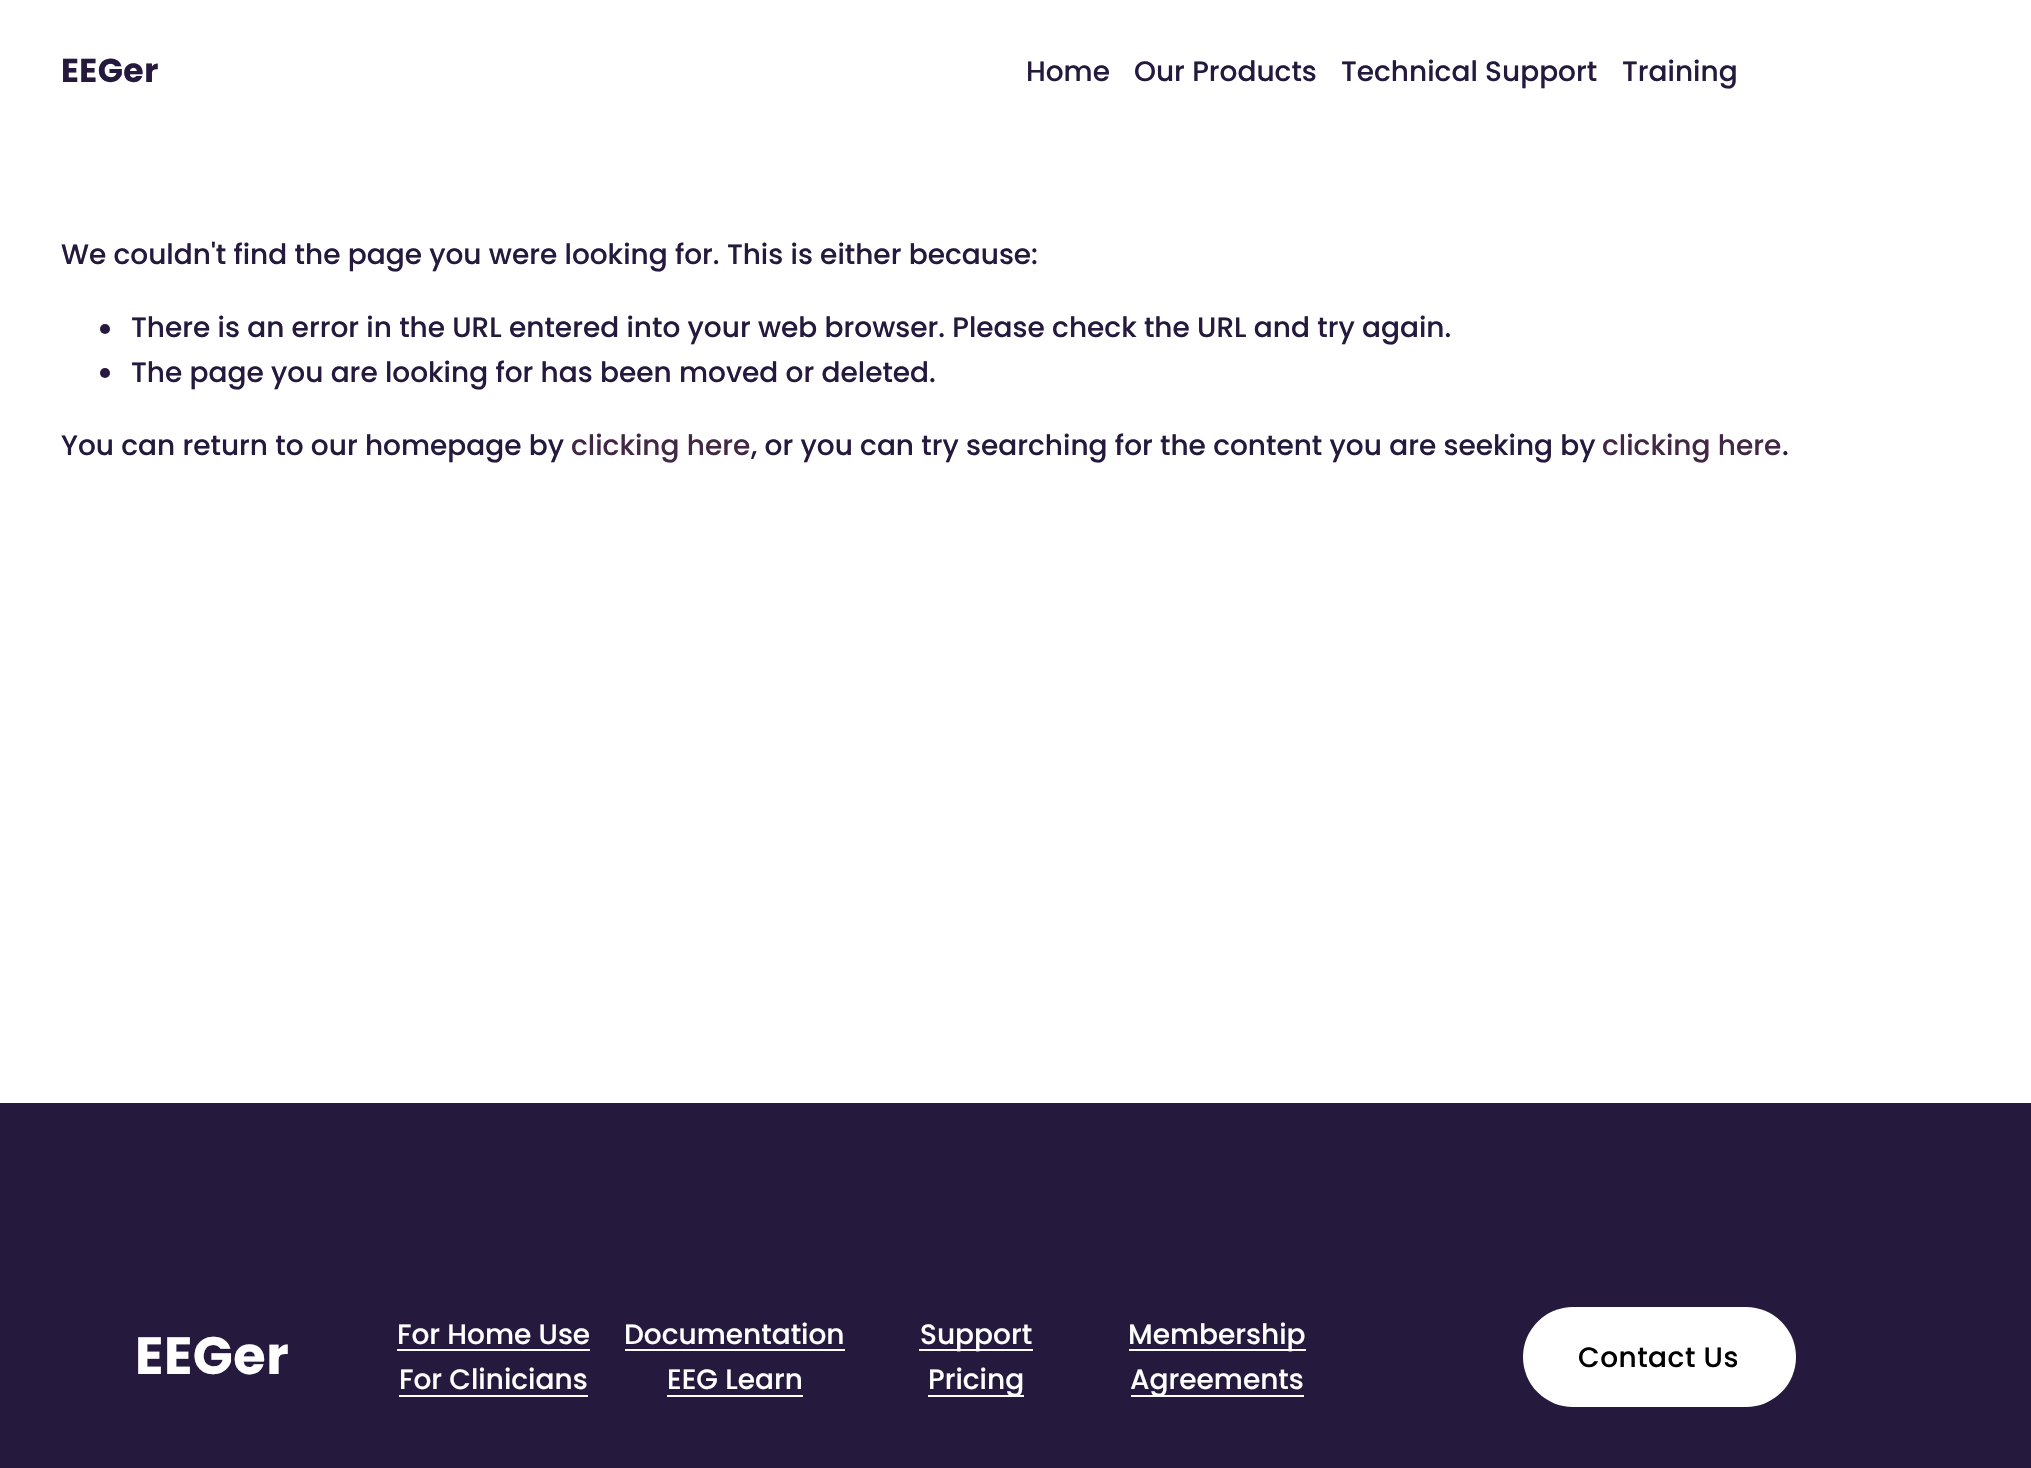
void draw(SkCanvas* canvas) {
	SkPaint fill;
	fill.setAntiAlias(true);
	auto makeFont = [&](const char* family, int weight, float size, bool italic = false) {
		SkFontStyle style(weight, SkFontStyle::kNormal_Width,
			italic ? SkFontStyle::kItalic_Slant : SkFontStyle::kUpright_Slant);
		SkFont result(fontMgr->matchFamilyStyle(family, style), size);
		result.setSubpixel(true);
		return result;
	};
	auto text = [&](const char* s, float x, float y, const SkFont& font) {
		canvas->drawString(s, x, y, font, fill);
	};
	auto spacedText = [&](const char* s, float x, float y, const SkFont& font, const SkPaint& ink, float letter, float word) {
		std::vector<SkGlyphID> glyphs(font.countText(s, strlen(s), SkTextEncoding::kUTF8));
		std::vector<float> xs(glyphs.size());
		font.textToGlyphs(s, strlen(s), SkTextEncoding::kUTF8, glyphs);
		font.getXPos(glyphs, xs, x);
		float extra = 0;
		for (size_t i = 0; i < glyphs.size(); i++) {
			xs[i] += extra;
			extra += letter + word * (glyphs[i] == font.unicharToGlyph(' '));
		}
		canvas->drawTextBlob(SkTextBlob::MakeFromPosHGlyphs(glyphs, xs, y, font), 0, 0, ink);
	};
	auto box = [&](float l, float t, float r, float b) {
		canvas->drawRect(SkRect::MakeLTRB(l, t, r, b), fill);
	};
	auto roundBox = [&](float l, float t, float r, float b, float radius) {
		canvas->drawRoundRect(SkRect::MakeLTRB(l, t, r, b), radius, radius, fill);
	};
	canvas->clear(0xFFFFFFFF);
	fill.setColor(0xFF25193E);
	canvas->drawCircle(105, 329, 5, fill);
	canvas->drawCircle(105, 373, 5, fill);
	box(0, 1103, 2031, 1468);
	fill.setColor(0xFFFFFFFF);
	box(397, 1349, 590, 1351);
	box(399, 1395, 588, 1397);
	box(625, 1349, 845, 1351);
	box(667, 1395, 803, 1397);
	box(919, 1349, 1033, 1351);
	box(928, 1395, 1024, 1397);
	box(1129, 1349, 1306, 1351);
	box(1131, 1395, 1304, 1397);
	roundBox(1523, 1307, 1796, 1407, 50);
	auto font1 = makeFont("Poppins", 700, 33);
	fill.setColor(0xFF25193E);
	spacedText("EEGer", 61, 82, font1, fill, 0.5f, 0);
	auto font2 = makeFont("Poppins", 500, 28);
	text("Home", 1026, 81, font2);
	text("Our Products", 1134, 81, font2);
	text("Technical Support", 1341, 81, font2);
	text("Training", 1622, 81, font2);
	text("We couldn't find the page you were looking for. This is either because:", 61, 264, font2);
	text("There is an error in the URL entered into your web browser. Please check the URL and try again.", 131, 337, font2);
	text("The page you are looking for has been moved or deleted.", 131, 382, font2);
	text("You can return to our homepage by", 61, 455, font2);
	fill.setColor(0xFF422845);
	text("clicking here", 571, 455, font2);
	fill.setColor(0xFF25193E);
	text(", or you can try searching for the content you are seeking by", 751, 455, font2);
	fill.setColor(0xFF422845);
	text("clicking here", 1602, 455, font2);
	fill.setColor(0xFF25193E);
	text(".", 1782, 455, font2);
	auto font3 = makeFont("Poppins", 700, 52.5f);
	fill.setColor(0xFFFFFFFF);
	spacedText("EEGer", 135, 1374, font3, fill, 0.5f, 0);
	text("For Home Use", 397, 1344, font2);
	text("For Clinicians", 399, 1389, font2);
	text("Documentation", 624, 1344, font2);
	text("EEG Learn", 667, 1389, font2);
	text("Support", 920, 1344, font2);
	text("Pricing", 928, 1389, font2);
	text("Membership", 1128, 1344, font2);
	text("Agreements", 1130, 1389, font2);
	fill.setColor(0xFF000000);
	spacedText("Contact Us", 1578, 1367, font2, fill, 0.5f, 0);
}
